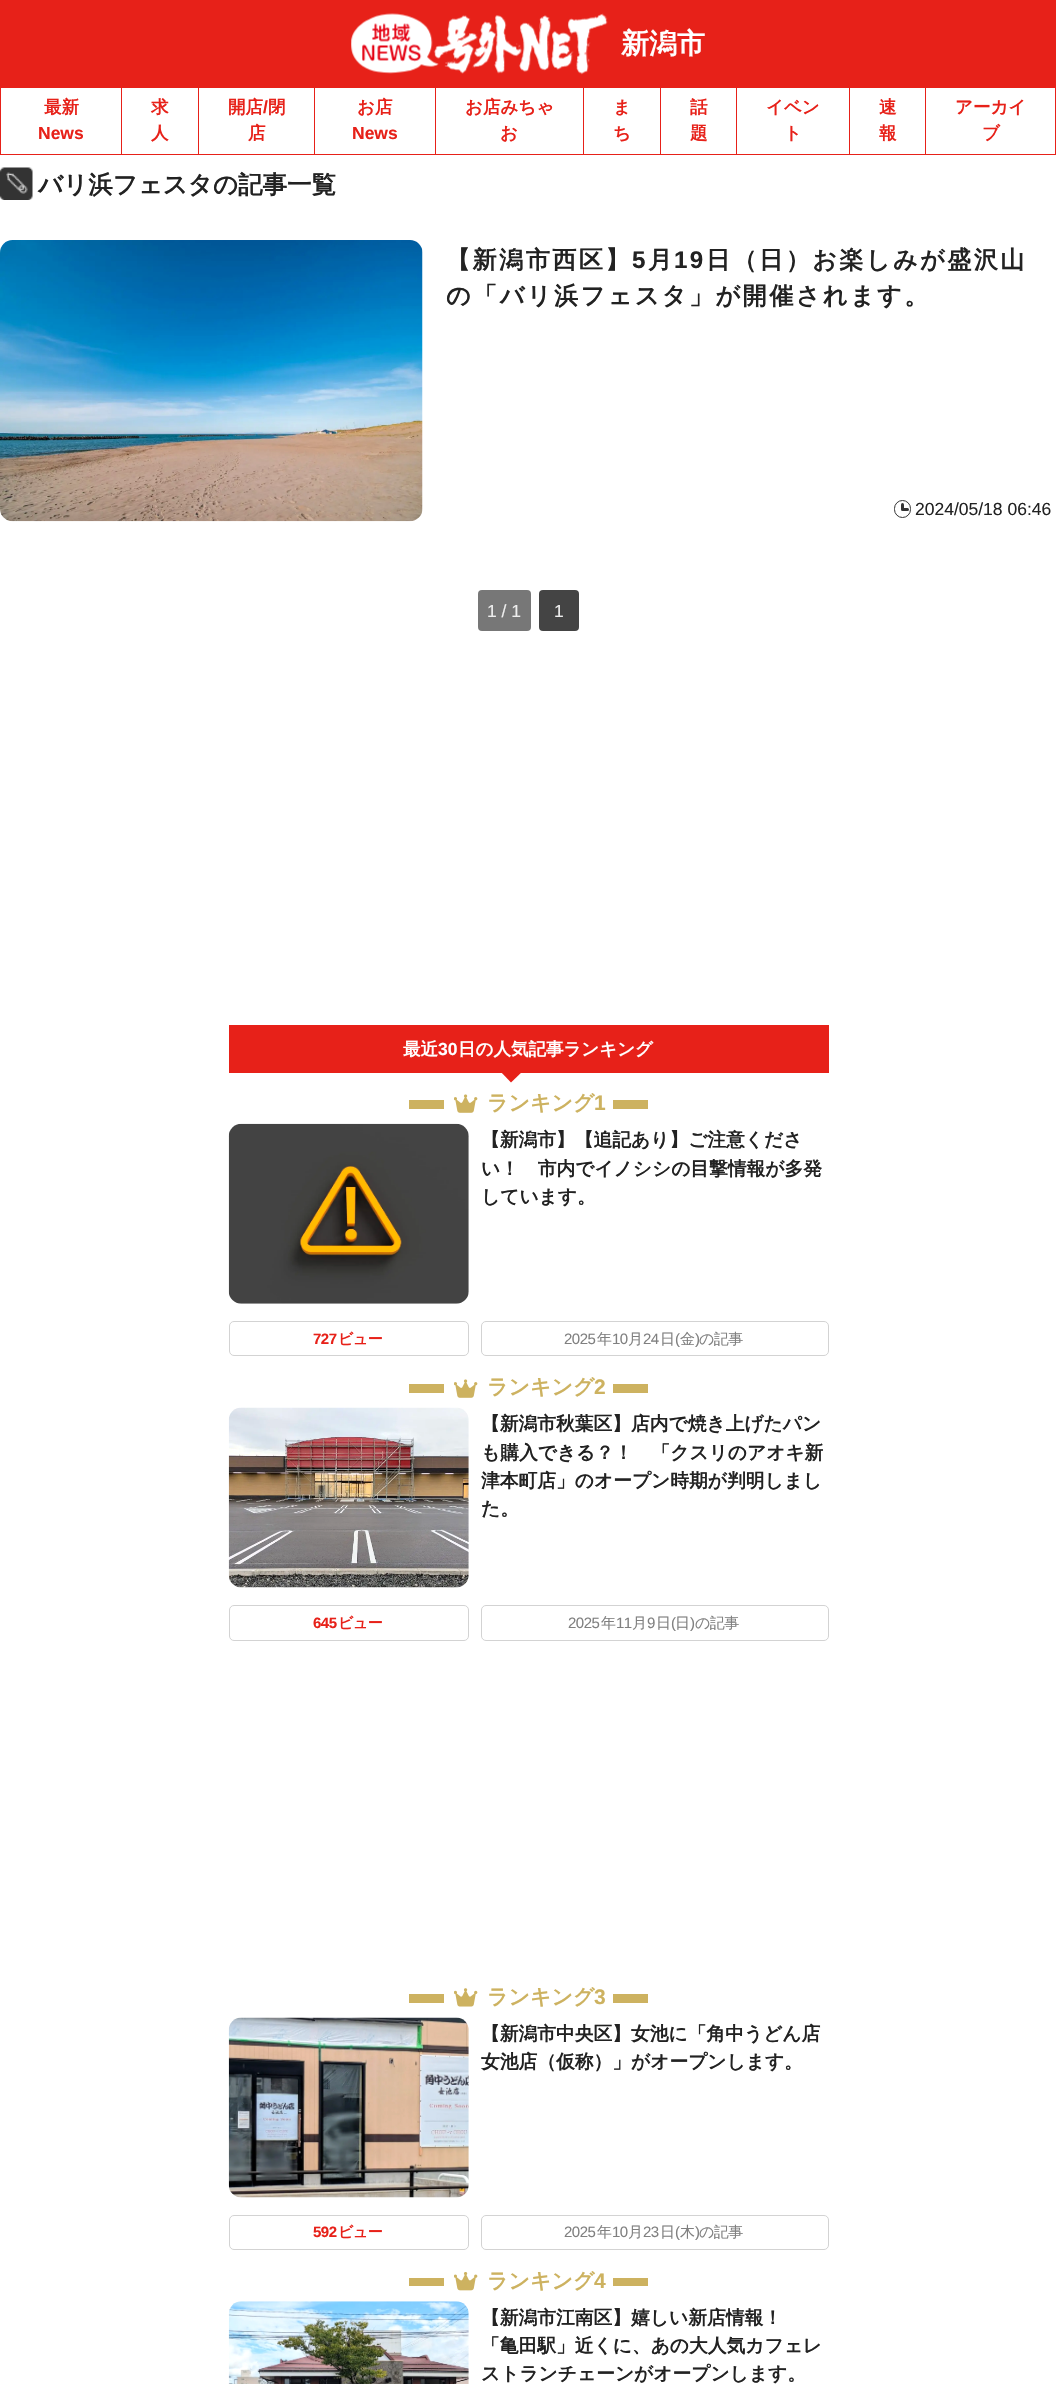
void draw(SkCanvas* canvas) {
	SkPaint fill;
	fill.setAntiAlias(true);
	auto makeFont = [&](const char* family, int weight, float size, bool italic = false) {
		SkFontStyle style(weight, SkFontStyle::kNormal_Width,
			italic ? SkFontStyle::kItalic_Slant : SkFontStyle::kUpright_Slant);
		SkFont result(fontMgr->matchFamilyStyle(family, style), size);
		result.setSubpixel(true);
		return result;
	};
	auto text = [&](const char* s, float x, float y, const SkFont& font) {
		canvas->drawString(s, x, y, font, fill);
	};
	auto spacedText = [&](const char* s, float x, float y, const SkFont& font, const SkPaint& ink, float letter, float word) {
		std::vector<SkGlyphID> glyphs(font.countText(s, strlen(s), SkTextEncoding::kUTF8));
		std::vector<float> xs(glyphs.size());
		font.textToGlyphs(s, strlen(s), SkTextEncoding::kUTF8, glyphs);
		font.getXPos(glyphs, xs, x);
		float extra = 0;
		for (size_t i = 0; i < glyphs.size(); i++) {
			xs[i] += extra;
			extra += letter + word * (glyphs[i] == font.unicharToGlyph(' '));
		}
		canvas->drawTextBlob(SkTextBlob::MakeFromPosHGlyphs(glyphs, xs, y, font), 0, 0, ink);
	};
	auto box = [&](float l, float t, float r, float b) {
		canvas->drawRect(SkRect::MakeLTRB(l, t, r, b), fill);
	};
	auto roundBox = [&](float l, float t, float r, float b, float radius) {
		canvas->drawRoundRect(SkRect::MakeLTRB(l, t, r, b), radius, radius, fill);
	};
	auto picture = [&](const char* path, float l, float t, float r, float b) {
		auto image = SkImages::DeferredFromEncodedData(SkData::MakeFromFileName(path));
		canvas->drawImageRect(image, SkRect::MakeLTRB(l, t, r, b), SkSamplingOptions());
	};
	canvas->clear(0xFFFFFFFF);
	fill.setColor(0xFFE72119);
	box(0, 0, 1056, 88);
	picture("image0.png", 351, 13, 608, 75);
	box(0, 154, 1056, 155);
	box(121, 88, 122, 154);
	box(0, 88, 1, 154);
	box(198, 88, 199, 154);
	box(314, 88, 315, 154);
	box(435, 88, 436, 154);
	box(583, 88, 584, 154);
	box(660, 88, 661, 154);
	box(736, 88, 737, 154);
	box(849, 88, 850, 154);
	box(925, 88, 926, 154);
	box(1055, 88, 1056, 154);
	picture("image1.png", 0, 167, 33, 200);
	picture("image2.png", 0, 240, 423, 522);
	fill.setStyle(SkPaint::kStroke_Style);
	fill.setStrokeWidth(1);
	fill.setColor(0xFF333333);
	canvas->drawRoundRect(SkRect::MakeLTRB(894.5f, 500.5f, 910.5f, 517.5f), 8, 8, fill);
	fill.setStyle(SkPaint::kFill_Style);
	roundBox(901, 503, 904, 510, 1.5f);
	roundBox(901, 508, 909, 511, 1.5f);
	fill.setColor(0xFF777777);
	roundBox(478, 590, 531, 631, 4);
	fill.setColor(0xFF444444);
	roundBox(539, 590, 579, 631, 4);
	fill.setColor(0xFFE72119);
	box(229, 1025, 829, 1073);
	canvas->drawPath(SkPathBuilder().moveTo(499, 1070).lineTo(524, 1070).lineTo(511, 1082.5f).close().detach(), fill);
	fill.setColor(0xFFCDB260);
	box(409, 1100, 444, 1109);
	picture("image3.png", 454, 1094, 478, 1113);
	box(613, 1100, 648, 1109);
	picture("image4.png", 228, 1123, 469, 1304);
	fill.setStyle(SkPaint::kStroke_Style);
	fill.setColor(0xFFD3D3D3);
	canvas->drawRoundRect(SkRect::MakeLTRB(229.5f, 1321.5f, 468.5f, 1355.5f), 4.5f, 4.5f, fill);
	canvas->drawRoundRect(SkRect::MakeLTRB(481.5f, 1321.5f, 828.5f, 1355.5f), 4.5f, 4.5f, fill);
	fill.setStyle(SkPaint::kFill_Style);
	fill.setColor(0xFFCDB260);
	box(409, 1384, 444, 1393);
	picture("image3.png", 454, 1379, 478, 1398);
	box(613, 1384, 648, 1393);
	picture("image5.png", 228, 1407, 469, 1588);
	fill.setStyle(SkPaint::kStroke_Style);
	fill.setColor(0xFFD3D3D3);
	canvas->drawRoundRect(SkRect::MakeLTRB(229.5f, 1605.5f, 468.5f, 1640.5f), 4.5f, 4.5f, fill);
	canvas->drawRoundRect(SkRect::MakeLTRB(481.5f, 1605.5f, 828.5f, 1640.5f), 4.5f, 4.5f, fill);
	fill.setStyle(SkPaint::kFill_Style);
	fill.setColor(0xFFCDB260);
	box(409, 1994, 444, 2003);
	picture("image6.png", 454, 1988, 478, 2007);
	box(613, 1994, 648, 2003);
	picture("image7.png", 228, 2017, 469, 2198);
	fill.setStyle(SkPaint::kStroke_Style);
	fill.setColor(0xFFD3D3D3);
	canvas->drawRoundRect(SkRect::MakeLTRB(229.5f, 2215.5f, 468.5f, 2249.5f), 4.5f, 4.5f, fill);
	canvas->drawRoundRect(SkRect::MakeLTRB(481.5f, 2215.5f, 828.5f, 2249.5f), 4.5f, 4.5f, fill);
	fill.setStyle(SkPaint::kFill_Style);
	fill.setColor(0xFFCDB260);
	box(409, 2278, 444, 2286);
	picture("image8.png", 454, 2272, 478, 2291);
	box(613, 2278, 648, 2286);
	picture("image9.png", 228, 2301, 469, 2384);
	auto font1 = makeFont("WenQuanYi Zen Hei", 700, 28);
	fill.setColor(0xFFFFFFFF);
	text("新潟市", 621, 53, font1);
	auto font2 = makeFont("WenQuanYi Zen Hei", 700, 17.5f);
	fill.setColor(0xFFE72119);
	text("最新", 44, 113, font2);
	auto font3 = makeFont("Liberation Sans", 700, 17.5f);
	text("News", 38, 139, font3);
	text("求", 151, 113, font2);
	text("人", 151, 139, font2);
	text("開店", 228, 113, font2);
	text("/", 263, 113, font3);
	text("閉", 268, 113, font2);
	text("店", 248, 139, font2);
	text("お店", 357, 113, font2);
	text("News", 352, 139, font3);
	text("お店みちゃ", 465, 113, font2);
	text("お", 500, 139, font2);
	text("ま", 613, 113, font2);
	text("ち", 613, 139, font2);
	text("話", 690, 113, font2);
	text("題", 690, 139, font2);
	text("イベン", 766, 113, font2);
	text("ト", 784, 139, font2);
	text("速", 879, 113, font2);
	text("報", 879, 139, font2);
	text("アーカイ", 955, 113, font2);
	text("ブ", 982, 139, font2);
	auto font4 = makeFont("WenQuanYi Zen Hei", 700, 24.5f);
	fill.setColor(0xFF222222);
	text("バリ浜フェスタの記事一覧", 38, 193, font4);
	auto font5 = makeFont("WenQuanYi Zen Hei", 700, 24.15f);
	spacedText("【新潟市西区】", 446, 268, font5, fill, 2.4f, 0);
	auto font6 = makeFont("Liberation Sans", 700, 24.15f);
	spacedText("5", 632, 268, font6, fill, 2.4f, 0);
	spacedText("月", 648, 268, font5, fill, 2.4f, 0);
	spacedText("19", 674, 268, font6, fill, 2.4f, 0);
	spacedText("日（日）お楽しみが盛沢山", 706, 268, font5, fill, 2.4f, 0);
	spacedText("の「バリ浜フェスタ」が開催されます。", 446, 304, font5, fill, 2.4f, 0);
	auto font7 = makeFont("Liberation Sans", 400, 17.5f);
	text("2024/05/18 06:46", 915, 515, font7);
	fill.setColor(0xFFEEEEEE);
	text("1 / 1", 487, 617, font7);
	text("1", 554, 617, font7);
	fill.setColor(0xFFFFFFFF);
	text("最近", 403, 1055, font2);
	text("30", 438, 1055, font3);
	text("日の人気記事ランキング", 458, 1055, font2);
	auto font8 = makeFont("WenQuanYi Zen Hei", 700, 21);
	fill.setColor(0xFFCDB260);
	text("ランキング", 487, 1110, font8);
	auto font9 = makeFont("Liberation Sans", 700, 21);
	text("1", 594, 1110, font9);
	auto font10 = makeFont("WenQuanYi Zen Hei", 700, 18.75f);
	fill.setColor(0xFF222222);
	text("【新潟市】【追記あり】ご注意くださ", 481, 1146, font10);
	text("い！　市内でイノシシの目撃情報が多発", 481, 1175, font10);
	text("しています。", 481, 1203, font10);
	auto font11 = makeFont("Liberation Sans", 700, 15);
	fill.setColor(0xFFE72119);
	spacedText("727", 313, 1344, font11, fill, -0.5f, 0);
	auto font12 = makeFont("WenQuanYi Zen Hei", 700, 15);
	spacedText("ビュー", 338, 1344, font12, fill, -0.5f, 0);
	auto font13 = makeFont("Liberation Sans", 400, 15);
	fill.setColor(0xFF808080);
	spacedText("2025", 564, 1344, font13, fill, -0.5f, 0);
	auto font14 = makeFont("WenQuanYi Zen Hei", 500, 15);
	spacedText("年", 597, 1344, font14, fill, -0.5f, 0);
	spacedText("10", 612, 1344, font13, fill, -0.5f, 0);
	spacedText("月", 628, 1344, font14, fill, -0.5f, 0);
	spacedText("24", 643, 1344, font13, fill, -0.5f, 0);
	spacedText("日", 660, 1344, font14, fill, -0.5f, 0);
	spacedText("(", 675, 1344, font13, fill, -0.5f, 0);
	spacedText("金", 680, 1344, font14, fill, -0.5f, 0);
	spacedText(")", 695, 1344, font13, fill, -0.5f, 0);
	spacedText("の記事", 699, 1344, font14, fill, -0.5f, 0);
	fill.setColor(0xFFCDB260);
	text("ランキング", 487, 1394, font8);
	text("2", 594, 1394, font9);
	fill.setColor(0xFF222222);
	text("【新潟市秋葉区】店内で焼き上げたパン", 481, 1430, font10);
	text("も購入できる？！　「クスリのアオキ新", 481, 1459, font10);
	text("津本町店」のオープン時期が判明しまし", 481, 1487, font10);
	text("た。", 481, 1515, font10);
	fill.setColor(0xFFE72119);
	spacedText("645", 313, 1628, font11, fill, -0.5f, 0);
	spacedText("ビュー", 338, 1628, font12, fill, -0.5f, 0);
	fill.setColor(0xFF808080);
	spacedText("2025", 568, 1628, font13, fill, -0.5f, 0);
	spacedText("年", 601, 1628, font14, fill, -0.5f, 0);
	spacedText("11", 616, 1628, font13, fill, -0.5f, 0);
	spacedText("月", 632, 1628, font14, fill, -0.5f, 0);
	spacedText("9", 647, 1628, font13, fill, -0.5f, 0);
	spacedText("日", 656, 1628, font14, fill, -0.5f, 0);
	spacedText("(", 671, 1628, font13, fill, -0.5f, 0);
	spacedText("日", 675, 1628, font14, fill, -0.5f, 0);
	spacedText(")", 690, 1628, font13, fill, -0.5f, 0);
	spacedText("の記事", 695, 1628, font14, fill, -0.5f, 0);
	fill.setColor(0xFFCDB260);
	text("ランキング", 487, 2004, font8);
	text("3", 594, 2004, font9);
	fill.setColor(0xFF222222);
	text("【新潟市中央区】女池に「角中うどん店", 481, 2040, font10);
	text("女池店（仮称）」がオープンします。", 481, 2068, font10);
	fill.setColor(0xFFE72119);
	spacedText("592", 313, 2237, font11, fill, -0.5f, 0);
	spacedText("ビュー", 338, 2237, font12, fill, -0.5f, 0);
	fill.setColor(0xFF808080);
	spacedText("2025", 564, 2237, font13, fill, -0.5f, 0);
	spacedText("年", 597, 2237, font14, fill, -0.5f, 0);
	spacedText("10", 612, 2237, font13, fill, -0.5f, 0);
	spacedText("月", 628, 2237, font14, fill, -0.5f, 0);
	spacedText("23", 643, 2237, font13, fill, -0.5f, 0);
	spacedText("日", 660, 2237, font14, fill, -0.5f, 0);
	spacedText("(", 675, 2237, font13, fill, -0.5f, 0);
	spacedText("木", 680, 2237, font14, fill, -0.5f, 0);
	spacedText(")", 695, 2237, font13, fill, -0.5f, 0);
	spacedText("の記事", 699, 2237, font14, fill, -0.5f, 0);
	fill.setColor(0xFFCDB260);
	text("ランキング", 487, 2288, font8);
	text("4", 594, 2288, font9);
	fill.setColor(0xFF222222);
	text("【新潟市江南区】嬉しい新店情報！", 481, 2324, font10);
	text("「亀田駅」近くに、あの大人気カフェレ", 481, 2352, font10);
	text("ストランチェーンがオープンします。", 481, 2380, font10);
}
